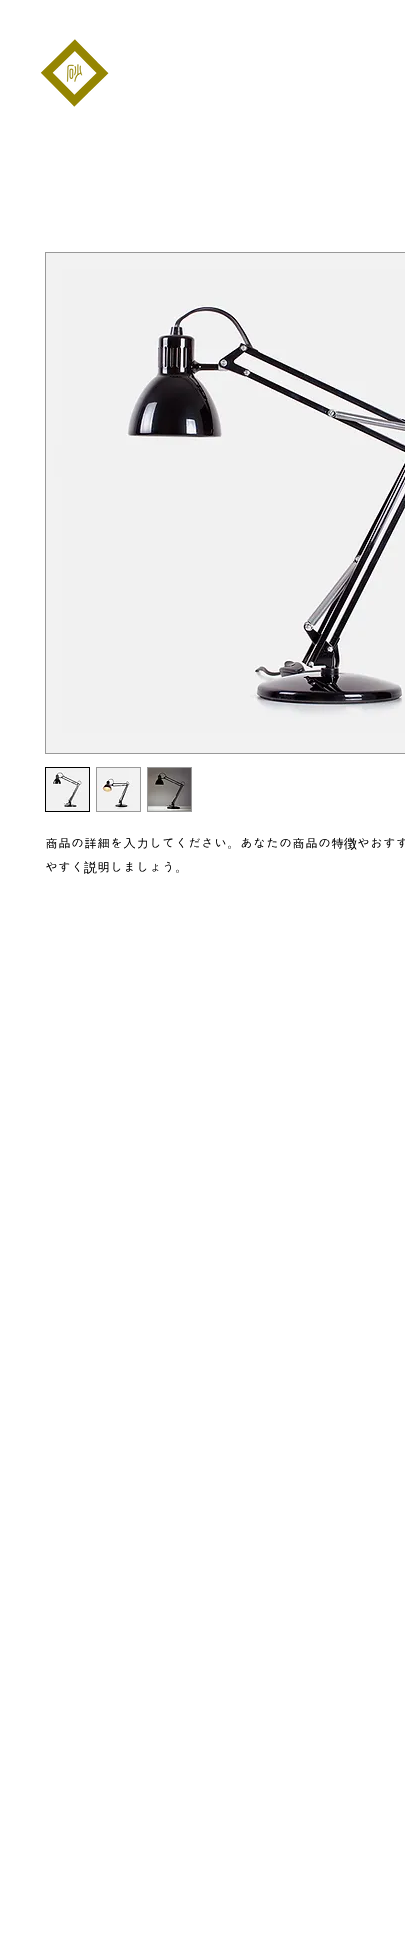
void draw(SkCanvas* canvas) {
	SkPaint fill;
	fill.setAntiAlias(true);
	auto makeFont = [&](const char* family, int weight, float size, bool italic = false) {
		SkFontStyle style(weight, SkFontStyle::kNormal_Width,
			italic ? SkFontStyle::kItalic_Slant : SkFontStyle::kUpright_Slant);
		SkFont result(fontMgr->matchFamilyStyle(family, style), size);
		result.setSubpixel(true);
		return result;
	};
	auto text = [&](const char* s, float x, float y, const SkFont& font) {
		canvas->drawString(s, x, y, font, fill);
	};
	auto box = [&](float l, float t, float r, float b) {
		canvas->drawRect(SkRect::MakeLTRB(l, t, r, b), fill);
	};
	auto picture = [&](const char* path, float l, float t, float r, float b) {
		auto image = SkImages::DeferredFromEncodedData(SkData::MakeFromFileName(path));
		canvas->drawImageRect(image, SkRect::MakeLTRB(l, t, r, b), SkSamplingOptions());
	};
	canvas->clear(0xFFFFFFFF);
	picture("image0.png", 40, 39, 109, 107);
	fill.setStyle(SkPaint::kStroke_Style);
	fill.setStrokeWidth(1);
	fill.setColor(0xFF999999);
	canvas->drawRect(SkRect::MakeLTRB(45.5f, 252.5f, 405.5f, 753.5f), fill);
	picture("image1.png", 46, 253, 405, 753);
	fill.setColor(0xFF000000);
	canvas->drawRect(SkRect::MakeLTRB(45.5f, 767.5f, 89.5f, 811.5f), fill);
	picture("image2.png", 46, 768, 89, 811);
	fill.setStyle(SkPaint::kFill_Style);
	fill.setColor(0xFF999999);
	box(96, 767, 141, 812);
	picture("image3.png", 97, 768, 140, 811);
	box(147, 767, 192, 812);
	picture("image4.png", 148, 768, 191, 811);
	auto font1 = makeFont("Dotum", 400, 13);
	fill.setColor(0xFF000000);
	text("商品の詳細を入力してください。あなたの商品の特", 45, 848, font1);
	auto font2 = makeFont("WenQuanYi Zen Hei", 500, 13);
	text("徴", 344, 848, font2);
	text("やおすす", 357, 848, font1);
	text("やすく", 45, 872, font1);
	text("説", 84, 872, font2);
	text("明しましょう。", 97, 872, font1);
}
